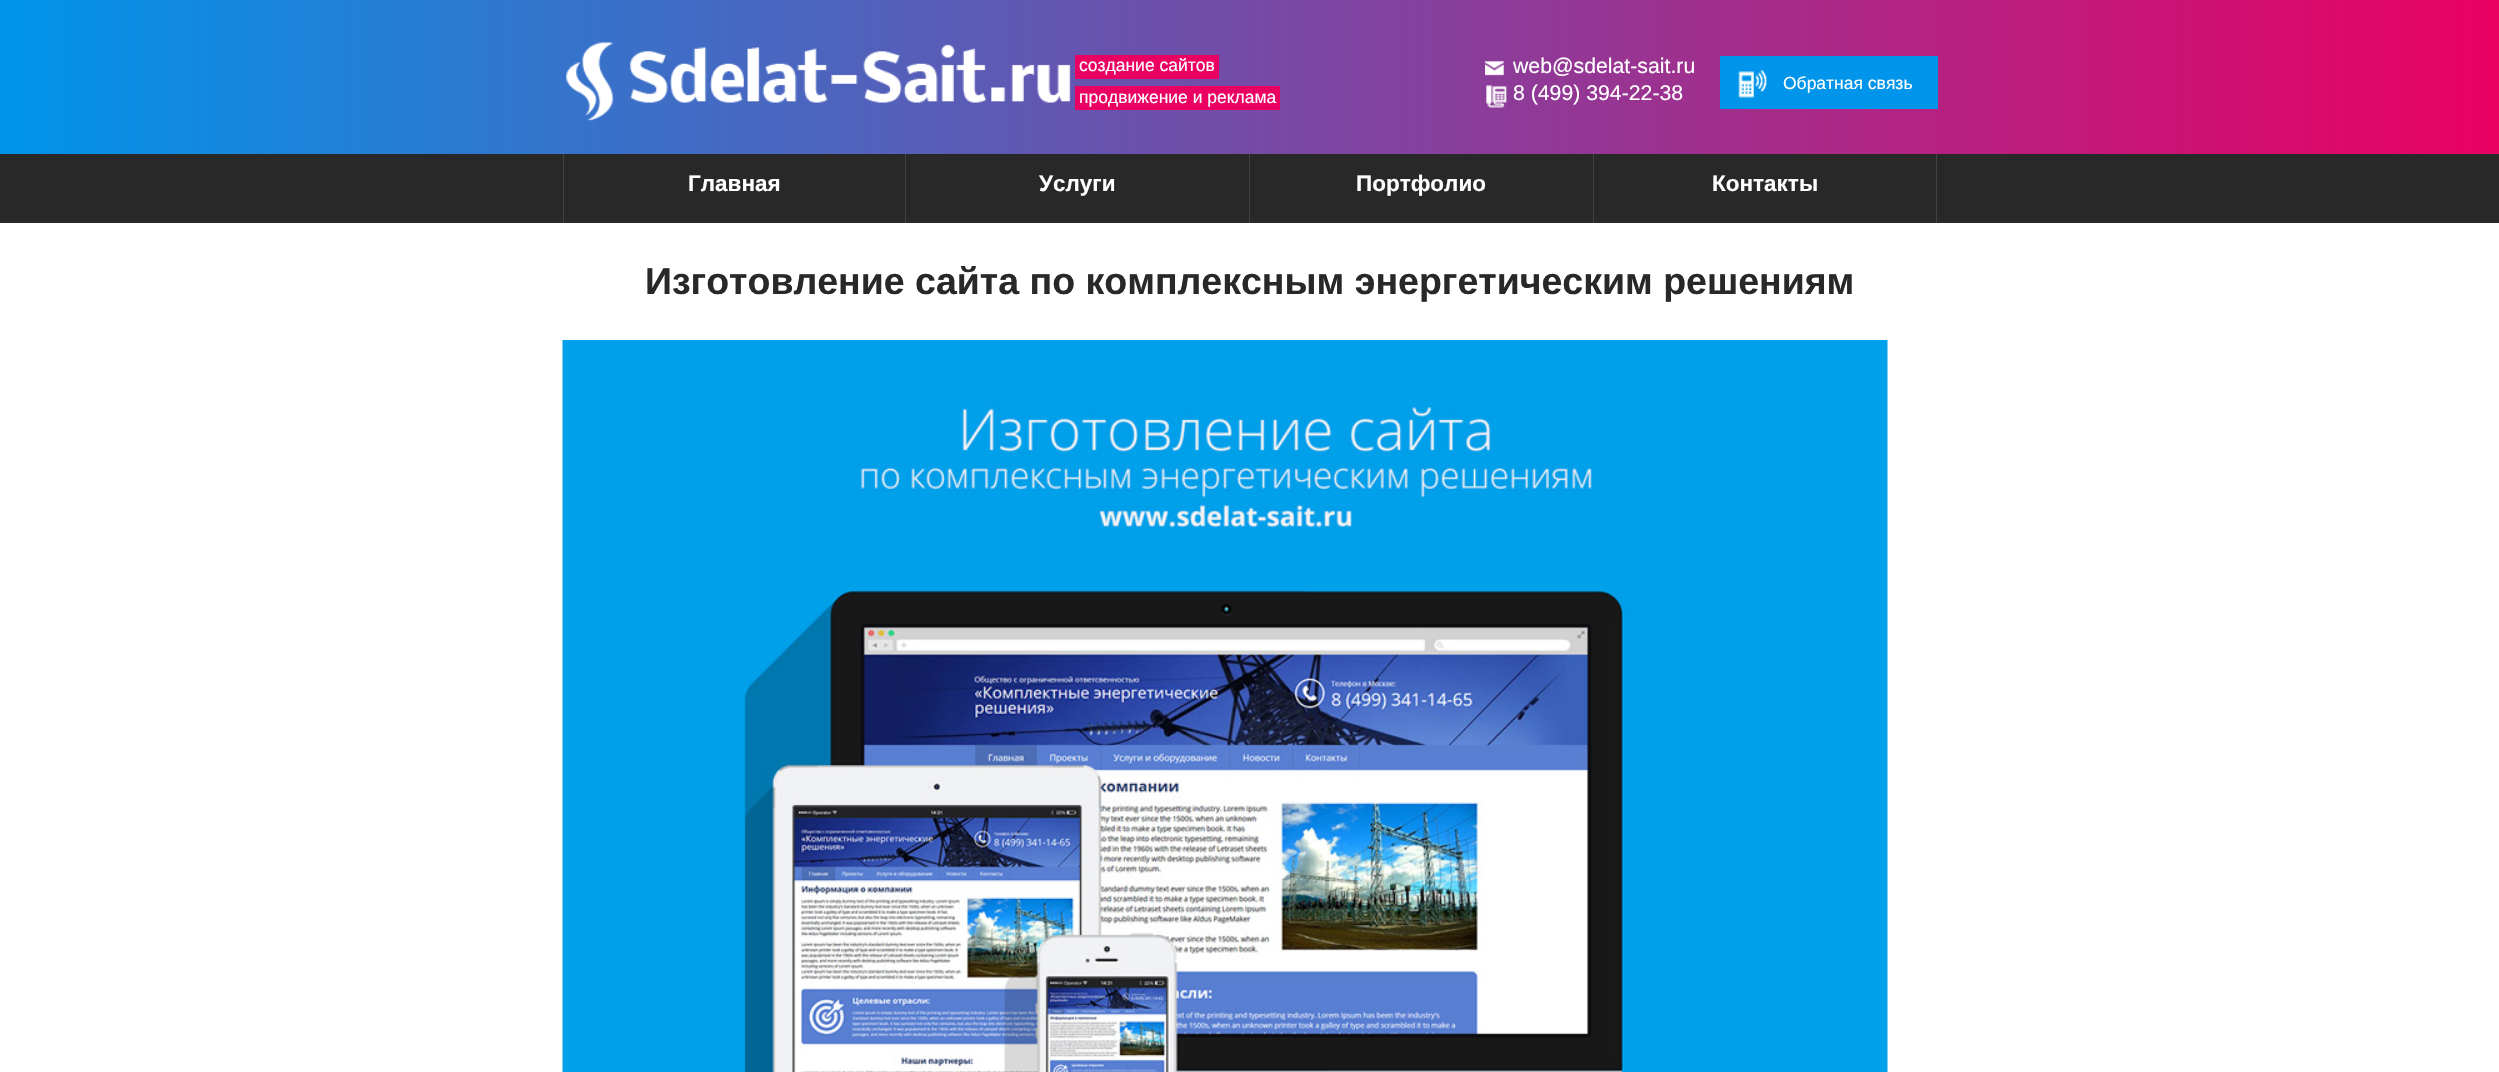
void draw(SkCanvas* canvas) {
	SkPaint fill;
	fill.setAntiAlias(true);
	auto makeFont = [&](const char* family, int weight, float size, bool italic = false) {
		SkFontStyle style(weight, SkFontStyle::kNormal_Width,
			italic ? SkFontStyle::kItalic_Slant : SkFontStyle::kUpright_Slant);
		SkFont result(fontMgr->matchFamilyStyle(family, style), size);
		result.setSubpixel(true);
		return result;
	};
	auto text = [&](const char* s, float x, float y, const SkFont& font) {
		canvas->drawString(s, x, y, font, fill);
	};
	auto box = [&](float l, float t, float r, float b) {
		canvas->drawRect(SkRect::MakeLTRB(l, t, r, b), fill);
	};
	auto picture = [&](const char* path, float l, float t, float r, float b) {
		auto image = SkImages::DeferredFromEncodedData(SkData::MakeFromFileName(path));
		canvas->drawImageRect(image, SkRect::MakeLTRB(l, t, r, b), SkSamplingOptions());
	};
	canvas->clear(0xFFFFFFFF);
	{
		const SkColor colors[] = {0xFF0095EA, 0xFFEA0063};
		const float stops[] = {0, 1};
		const SkPoint ends[] = {{0, 77}, {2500, 77}};
		fill.setShader(SkGradientShader::MakeLinear(ends, colors, stops, 2, SkTileMode::kClamp));
		fill.setAlpha(255);
	}
	box(0, 0, 2499, 154);
	picture("image0.png", 566, 42, 1071, 121);
	fill.setShader(nullptr);
	fill.setColor(0xFFEA0063);
	box(1075, 55, 1219, 79);
	box(1075, 86, 1280, 110);
	picture("image1.png", 1485, 61, 1504, 76);
	picture("image2.png", 1486, 85, 1507, 108);
	fill.setColor(0xFF0095EA);
	box(1720, 56, 1938, 109);
	picture("image3.png", 1738, 69, 1767, 98);
	fill.setColor(0xFF282828);
	box(0, 154, 2499, 223);
	fill.setColor(0xFF424242);
	box(905, 154, 906, 223);
	box(563, 154, 564, 223);
	box(1249, 154, 1250, 223);
	box(1593, 154, 1594, 223);
	box(1936, 154, 1937, 223);
	picture("image4.png", 562, 340, 1888, 1072);
	auto font1 = makeFont("Liberation Sans", 400, 17.5f);
	fill.setColor(0xFFFFFFFF);
	text("создание сайтов", 1079, 71, font1);
	text("продвижение и реклама", 1079, 103, font1);
	auto font2 = makeFont("Liberation Sans", 400, 21.25f);
	text("web@sdelat-sait.ru", 1513, 73, font2);
	text("8 (499) 394-22-38", 1513, 100, font2);
	text("Обратная связь", 1783, 89, font1);
	auto font3 = makeFont("Liberation Sans", 700, 22.5f);
	text("Главная", 688, 191, font3);
	text("Услуги", 1039, 191, font3);
	text("Портфолио", 1356, 191, font3);
	text("Контакты", 1712, 191, font3);
	auto font4 = makeFont("Liberation Sans", 700, 37.5f);
	fill.setColor(0xFF282828);
	text("Изготовление сайта по комплексным энергетическим решениям", 645, 294, font4);
}
